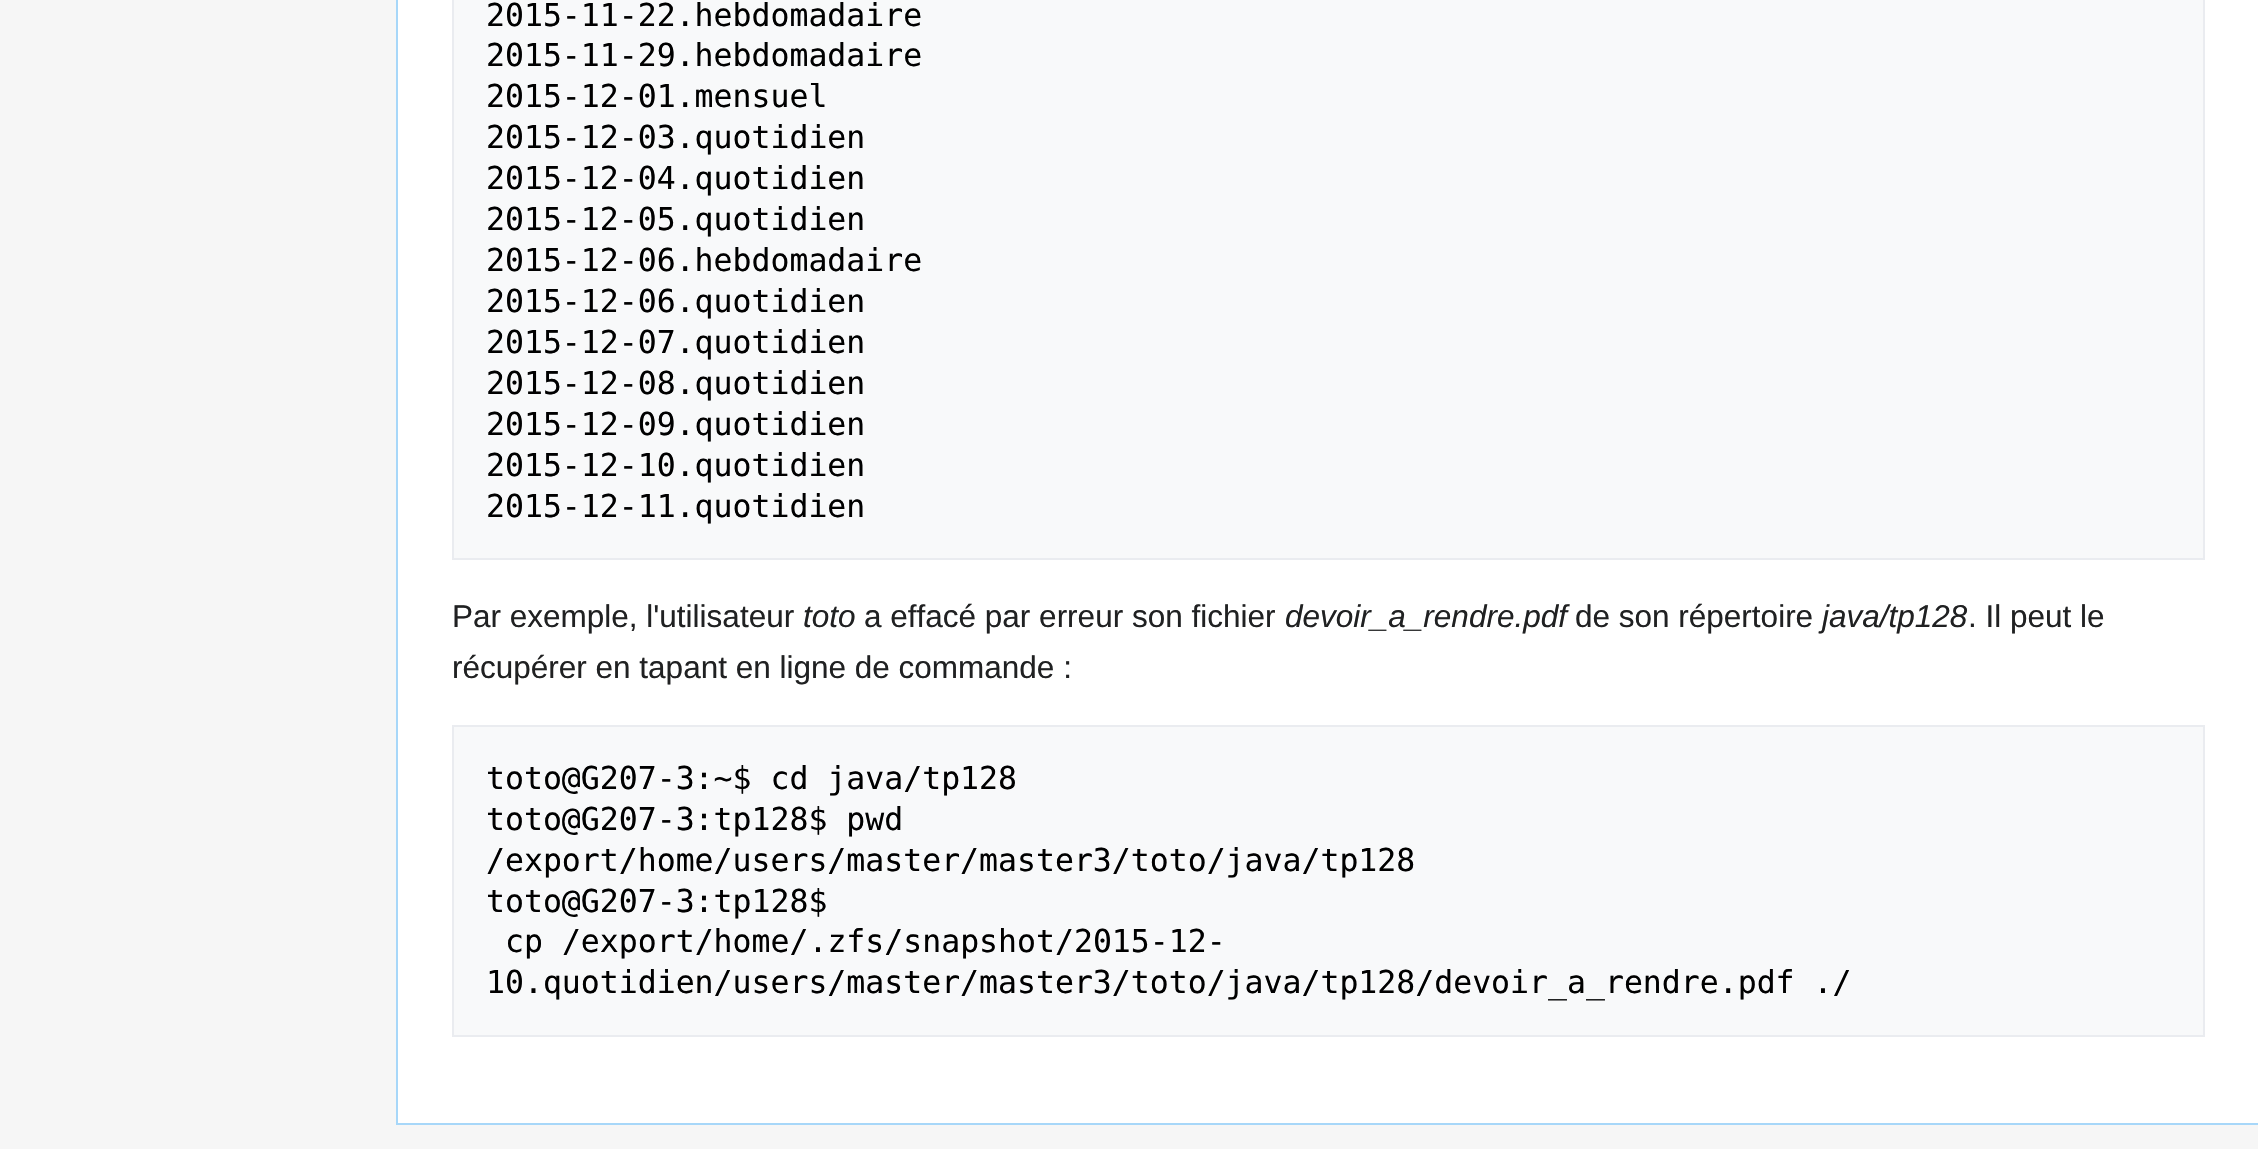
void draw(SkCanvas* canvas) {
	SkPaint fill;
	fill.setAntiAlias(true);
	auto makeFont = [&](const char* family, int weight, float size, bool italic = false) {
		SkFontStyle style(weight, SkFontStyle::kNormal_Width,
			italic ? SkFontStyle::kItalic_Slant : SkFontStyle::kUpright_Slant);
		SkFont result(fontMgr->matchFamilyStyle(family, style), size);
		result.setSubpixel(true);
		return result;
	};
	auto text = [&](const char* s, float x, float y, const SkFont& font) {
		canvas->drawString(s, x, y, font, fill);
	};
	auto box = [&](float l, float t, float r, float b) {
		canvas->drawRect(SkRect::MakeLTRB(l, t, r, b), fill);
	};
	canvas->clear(0xFFF6F6F6);
	fill.setColor(0xFFFFFFFF);
	box(398, 0, 2258, 1123);
	fill.setColor(0xFFA7D7F9);
	box(396, 1123, 2258, 1125);
	box(396, 0, 398, 1125);
	fill.setColor(0xFFF8F9FA);
	canvas->drawRect(SkRect::MakeLTRB(453, -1, 2204, 559), fill);
	fill.setStyle(SkPaint::kStroke_Style);
	fill.setStrokeWidth(2);
	fill.setColor(0xFFEAECF0);
	canvas->drawRect(SkRect::MakeLTRB(453, -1, 2204, 559), fill);
	fill.setStyle(SkPaint::kFill_Style);
	fill.setColor(0xFFF8F9FA);
	canvas->drawRect(SkRect::MakeLTRB(453, 726, 2204, 1036), fill);
	fill.setStyle(SkPaint::kStroke_Style);
	fill.setColor(0xFFEAECF0);
	canvas->drawRect(SkRect::MakeLTRB(453, 726, 2204, 1036), fill);
	auto font1 = makeFont("DejaVu Sans Mono", 400, 31.5f);
	fill.setStyle(SkPaint::kFill_Style);
	fill.setColor(0xFF000000);
	text("2015-11-22.hebdomadaire", 486, 26, font1);
	text("2015-11-29.hebdomadaire", 486, 66, font1);
	text("2015-12-01.mensuel", 486, 107, font1);
	text("2015-12-03.quotidien", 486, 148, font1);
	text("2015-12-04.quotidien", 486, 189, font1);
	text("2015-12-05.quotidien", 486, 230, font1);
	text("2015-12-06.hebdomadaire", 486, 271, font1);
	text("2015-12-06.quotidien", 486, 312, font1);
	text("2015-12-07.quotidien", 486, 353, font1);
	text("2015-12-08.quotidien", 486, 394, font1);
	text("2015-12-09.quotidien", 486, 435, font1);
	text("2015-12-10.quotidien", 486, 476, font1);
	text("2015-12-11.quotidien", 486, 517, font1);
	auto font2 = makeFont("Liberation Sans", 400, 31.5f);
	fill.setColor(0xFF202122);
	text("Par exemple, l'utilisateur", 452, 627, font2);
	auto font3 = makeFont("Liberation Sans", 400, 31.5f, true);
	text("toto", 803, 627, font3);
	text("a effacé par erreur son fichier", 864, 627, font2);
	text("devoir_a_rendre.pdf", 1285, 627, font3);
	text("de son répertoire", 1575, 627, font2);
	text("java/tp128", 1822, 627, font3);
	text(". Il peut le", 1968, 627, font2);
	text("récupérer en tapant en ligne de commande :", 452, 678, font2);
	fill.setColor(0xFF000000);
	text("toto@G207-3:~$ cd java/tp128", 486, 789, font1);
	text("toto@G207-3:tp128$ pwd", 486, 830, font1);
	text("/export/home/users/master/master3/toto/java/tp128", 486, 871, font1);
	text("toto@G207-3:tp128$", 486, 912, font1);
	text("cp /export/home/.zfs/snapshot/2015-12-", 505, 952, font1);
	text("10.quotidien/users/master/master3/toto/java/tp128/devoir_a_rendre.pdf ./", 486, 993, font1);
}
